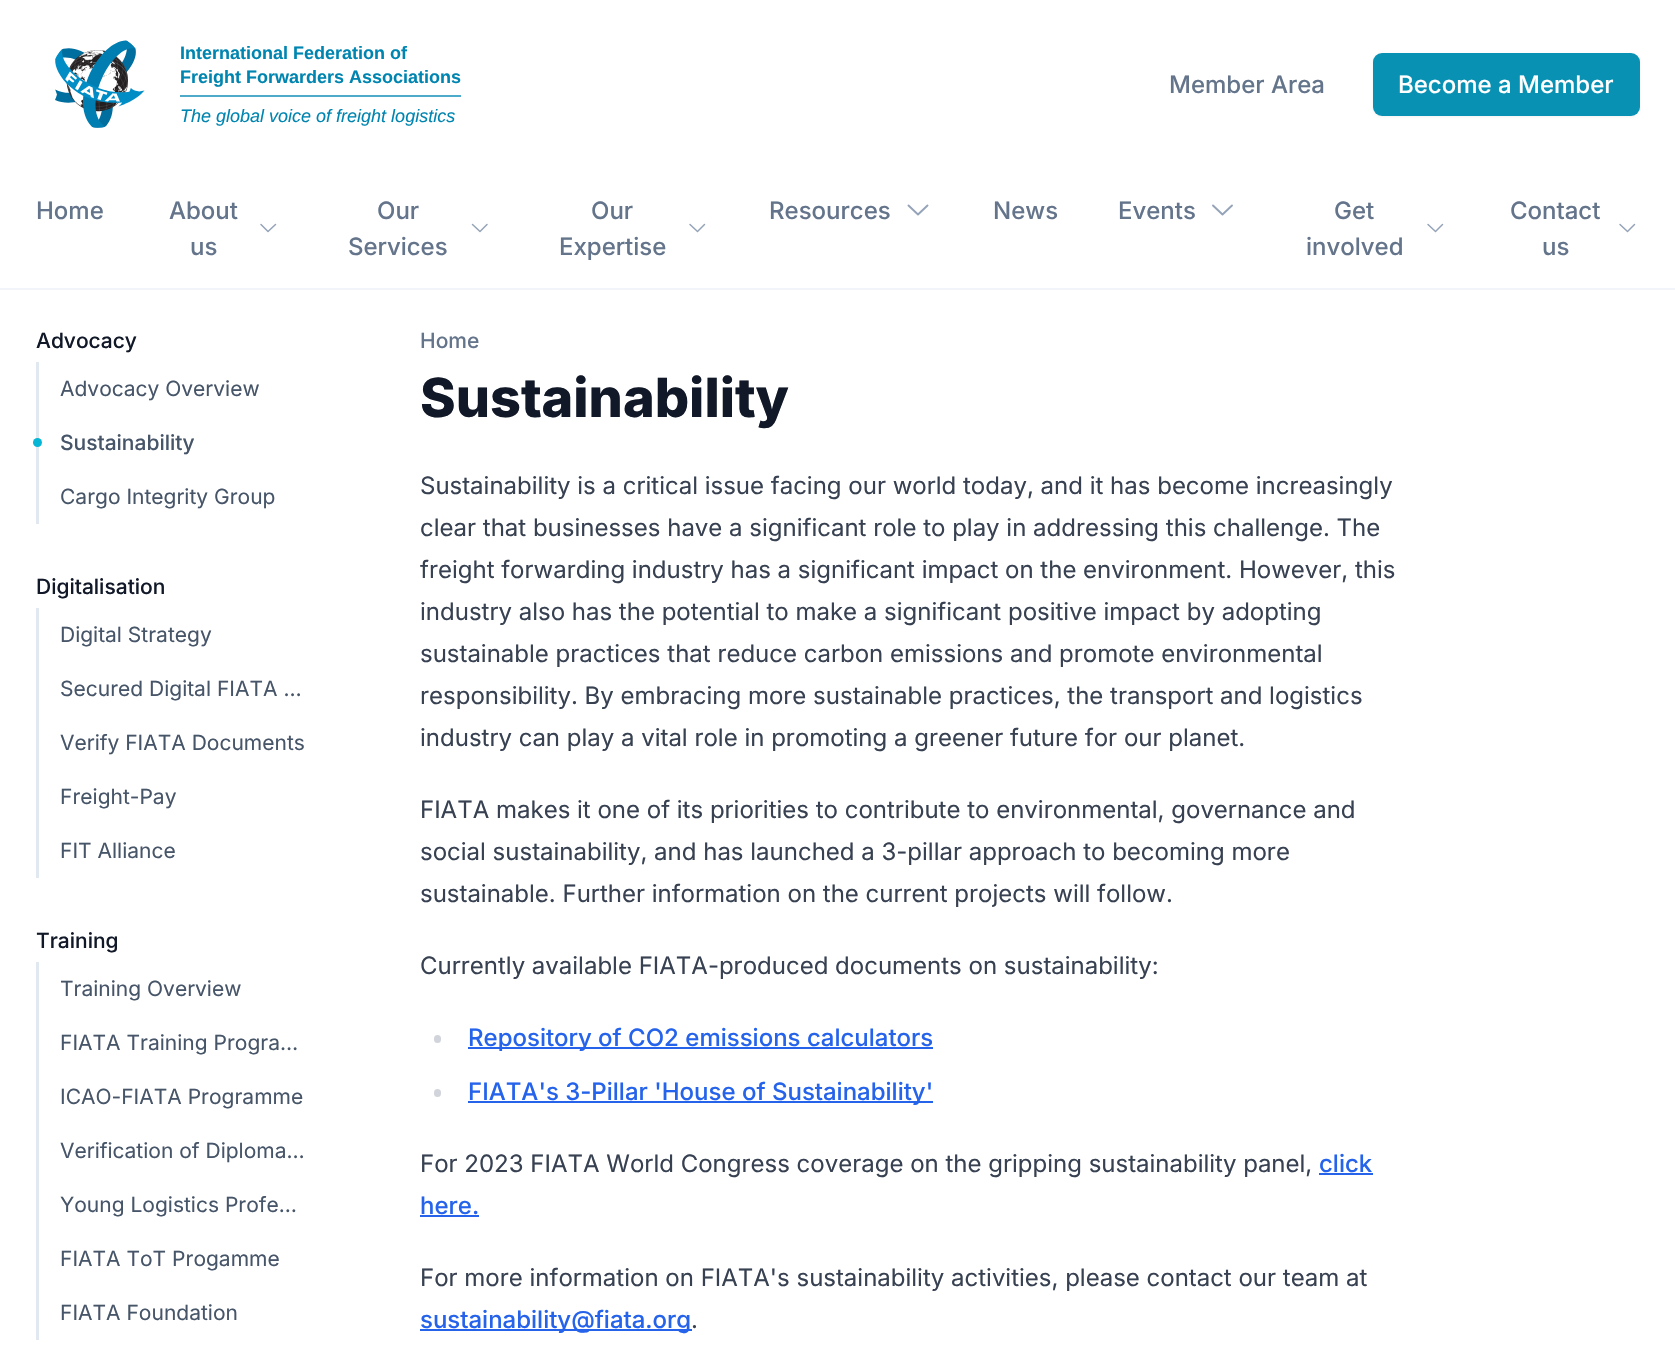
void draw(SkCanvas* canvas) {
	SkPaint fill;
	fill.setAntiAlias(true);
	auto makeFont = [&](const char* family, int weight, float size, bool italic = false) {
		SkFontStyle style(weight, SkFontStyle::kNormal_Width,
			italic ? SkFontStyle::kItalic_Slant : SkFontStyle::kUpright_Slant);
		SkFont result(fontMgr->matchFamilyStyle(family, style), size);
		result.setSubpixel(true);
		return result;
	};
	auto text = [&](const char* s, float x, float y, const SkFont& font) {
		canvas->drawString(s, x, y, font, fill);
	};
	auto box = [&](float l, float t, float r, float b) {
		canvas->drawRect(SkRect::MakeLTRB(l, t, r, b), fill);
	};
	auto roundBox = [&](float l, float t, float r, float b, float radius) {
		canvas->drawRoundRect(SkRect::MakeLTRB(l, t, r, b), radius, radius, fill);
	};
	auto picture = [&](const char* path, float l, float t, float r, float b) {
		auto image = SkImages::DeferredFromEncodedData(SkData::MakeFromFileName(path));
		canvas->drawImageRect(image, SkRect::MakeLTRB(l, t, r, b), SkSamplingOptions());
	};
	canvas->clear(0xFFFFFFFF);
	picture("image0.png", 55, 40, 145, 128);
	fill.setColor(0xFF4DAAC8);
	box(180, 95, 461, 97);
	fill.setColor(0x0D000000);
	fill.setMaskFilter(SkMaskFilter::MakeBlur(kNormal_SkBlurStyle, 1.5f));
	canvas->drawRoundRect(SkRect::MakeLTRB(1373, 54, 1640, 117), 9, 9, fill);
	fill.setMaskFilter(nullptr);
	fill.setColor(0xFF0891B2);
	roundBox(1373, 53, 1640, 116, 9);
	fill.setColor(0xFFF1F5F9);
	box(0, 288, 1675, 290);
	fill.setStyle(SkPaint::kStroke_Style);
	fill.setStrokeWidth(1.5f);
	fill.setStrokeCap(SkPaint::kRound_Cap);
	fill.setStrokeJoin(SkPaint::kRound_Join);
	fill.setColor(0xFF94A3B8);
	canvas->drawPath(SkPathBuilder().moveTo(275.5f, 224.5f).lineTo(268, 231.5f).lineTo(261, 224.5f).detach(), fill);
	canvas->drawPath(SkPathBuilder().moveTo(487, 224.5f).lineTo(480, 231.5f).lineTo(472.5f, 224.5f).detach(), fill);
	canvas->drawPath(SkPathBuilder().moveTo(704.5f, 224.5f).lineTo(697.5f, 231.5f).lineTo(690, 224.5f).detach(), fill);
	fill.setStrokeWidth(1.9f);
	canvas->drawPath(SkPathBuilder().moveTo(927.5f, 205.5f).lineTo(918, 214.5f).lineTo(908.5f, 205.5f).detach(), fill);
	canvas->drawPath(SkPathBuilder().moveTo(1232, 205.5f).lineTo(1222.5f, 214.5f).lineTo(1213, 205.5f).detach(), fill);
	fill.setStrokeWidth(1.5f);
	canvas->drawPath(SkPathBuilder().moveTo(1442.5f, 224.5f).lineTo(1435.5f, 231.5f).lineTo(1428, 224.5f).detach(), fill);
	canvas->drawPath(SkPathBuilder().moveTo(1634.5f, 224.5f).lineTo(1627.5f, 231.5f).lineTo(1620, 224.5f).detach(), fill);
	fill.setStyle(SkPaint::kFill_Style);
	fill.setColor(0xFFE2E8F0);
	box(36, 362, 39, 524);
	fill.setColor(0xFF06B6D4);
	canvas->drawCircle(37.5f, 442.5f, 4.5f, fill);
	fill.setColor(0xFFE2E8F0);
	box(36, 608, 39, 878);
	box(36, 962, 39, 1340);
	fill.setColor(0xFFD1D5DB);
	roundBox(434, 1035, 441, 1043, 3.5f);
	fill.setColor(0xFF2563EB);
	box(468, 1047, 933, 1049);
	fill.setColor(0xFFD1D5DB);
	roundBox(434, 1089, 441, 1097, 3.5f);
	fill.setColor(0xFF2563EB);
	box(468, 1101, 933, 1103);
	box(1319, 1173, 1373, 1175);
	box(420, 1215, 479, 1217);
	box(420, 1329, 692, 1331);
	auto font1 = makeFont("Liberation Sans", 700, 18);
	fill.setColor(0xFF0085B0);
	text("International Federation of", 180, 59, font1);
	text("Freight Forwarders Associations", 180, 83, font1);
	auto font2 = makeFont("Liberation Sans", 400, 18, true);
	text("The global voice of freight logistics", 180, 122, font2);
	auto font3 = makeFont("Inter", 500, 24);
	fill.setColor(0xFF64748B);
	text("Member Area", 1169, 93, font3);
	fill.setColor(0xFFFFFFFF);
	text("Become a Member", 1398, 93, font3);
	fill.setColor(0xFF64748B);
	text("Home", 36, 219, font3);
	text("About", 169, 219, font3);
	text("us", 190, 255, font3);
	text("Our", 377, 219, font3);
	text("Services", 348, 255, font3);
	text("Our", 591, 219, font3);
	text("Expertise", 559, 255, font3);
	text("Resources", 769, 219, font3);
	text("News", 993, 219, font3);
	text("Events", 1118, 219, font3);
	text("Get", 1334, 219, font3);
	text("involved", 1306, 255, font3);
	text("Contact", 1510, 219, font3);
	text("us", 1542, 255, font3);
	auto font4 = makeFont("Inter", 500, 21);
	fill.setColor(0xFF111827);
	text("Advocacy", 36, 348, font4);
	auto font5 = makeFont("Inter", 400, 21);
	fill.setColor(0xFF475569);
	text("Advocacy Overview", 60, 396, font5);
	text("Sustainability", 60, 450, font4);
	text("Cargo Integrity Group", 60, 504, font5);
	fill.setColor(0xFF111827);
	text("Digitalisation", 36, 594, font4);
	fill.setColor(0xFF475569);
	text("Digital Strategy", 60, 642, font5);
	text("Secured Digital FIATA …", 60, 696, font5);
	text("Verify FIATA Documents", 60, 750, font5);
	text("Freight-Pay", 60, 804, font5);
	text("FIT Alliance", 60, 858, font5);
	fill.setColor(0xFF111827);
	text("Training", 36, 948, font4);
	fill.setColor(0xFF475569);
	text("Training Overview", 60, 996, font5);
	text("FIATA Training Progra…", 60, 1050, font5);
	text("ICAO-FIATA Programme", 60, 1104, font5);
	text("Verification of Diploma…", 60, 1158, font5);
	text("Young Logistics Profe…", 60, 1212, font5);
	text("FIATA ToT Progamme", 60, 1266, font5);
	text("FIATA Foundation", 60, 1320, font5);
	fill.setColor(0xFF64748B);
	text("Home", 420, 348, font4);
	auto font6 = makeFont("Inter", 800, 54);
	fill.setColor(0xFF111827);
	text("Sustainability", 420, 417, font6);
	auto font7 = makeFont("Inter", 400, 24);
	fill.setColor(0xFF374151);
	text("Sustainability is a critical issue facing our world today, and it has become increasingly", 420, 494, font7);
	text("clear that businesses have a significant role to play in addressing this challenge. The", 420, 536, font7);
	text("freight forwarding industry has a significant impact on the environment. However, this", 420, 578, font7);
	text("industry also has the potential to make a significant positive impact by adopting", 420, 620, font7);
	text("sustainable practices that reduce carbon emissions and promote environmental", 420, 662, font7);
	text("responsibility. By embracing more sustainable practices, the transport and logistics", 420, 704, font7);
	text("industry can play a vital role in promoting a greener future for our planet.", 420, 746, font7);
	text("FIATA makes it one of its priorities to contribute to environmental, governance and", 420, 818, font7);
	text("social sustainability, and has launched a 3-pillar approach to becoming more", 420, 860, font7);
	text("sustainable. Further information on the current projects will follow.", 420, 902, font7);
	text("Currently available FIATA-produced documents on sustainability:", 420, 974, font7);
	fill.setColor(0xFF2563EB);
	text("Repository of CO2 emissions calculators", 468, 1046, font3);
	text("FIATA's 3-Pillar 'House of Sustainability'", 468, 1100, font3);
	fill.setColor(0xFF374151);
	text("For 2023 FIATA World Congress coverage on the gripping sustainability panel,", 420, 1172, font7);
	fill.setColor(0xFF2563EB);
	text("click", 1319, 1172, font3);
	text("here.", 420, 1214, font3);
	fill.setColor(0xFF374151);
	text("For more information on FIATA's sustainability activities, please contact our team at", 420, 1286, font7);
	fill.setColor(0xFF2563EB);
	text("sustainability@fiata.org", 420, 1328, font3);
	fill.setColor(0xFF374151);
	text(".", 691, 1328, font7);
}
